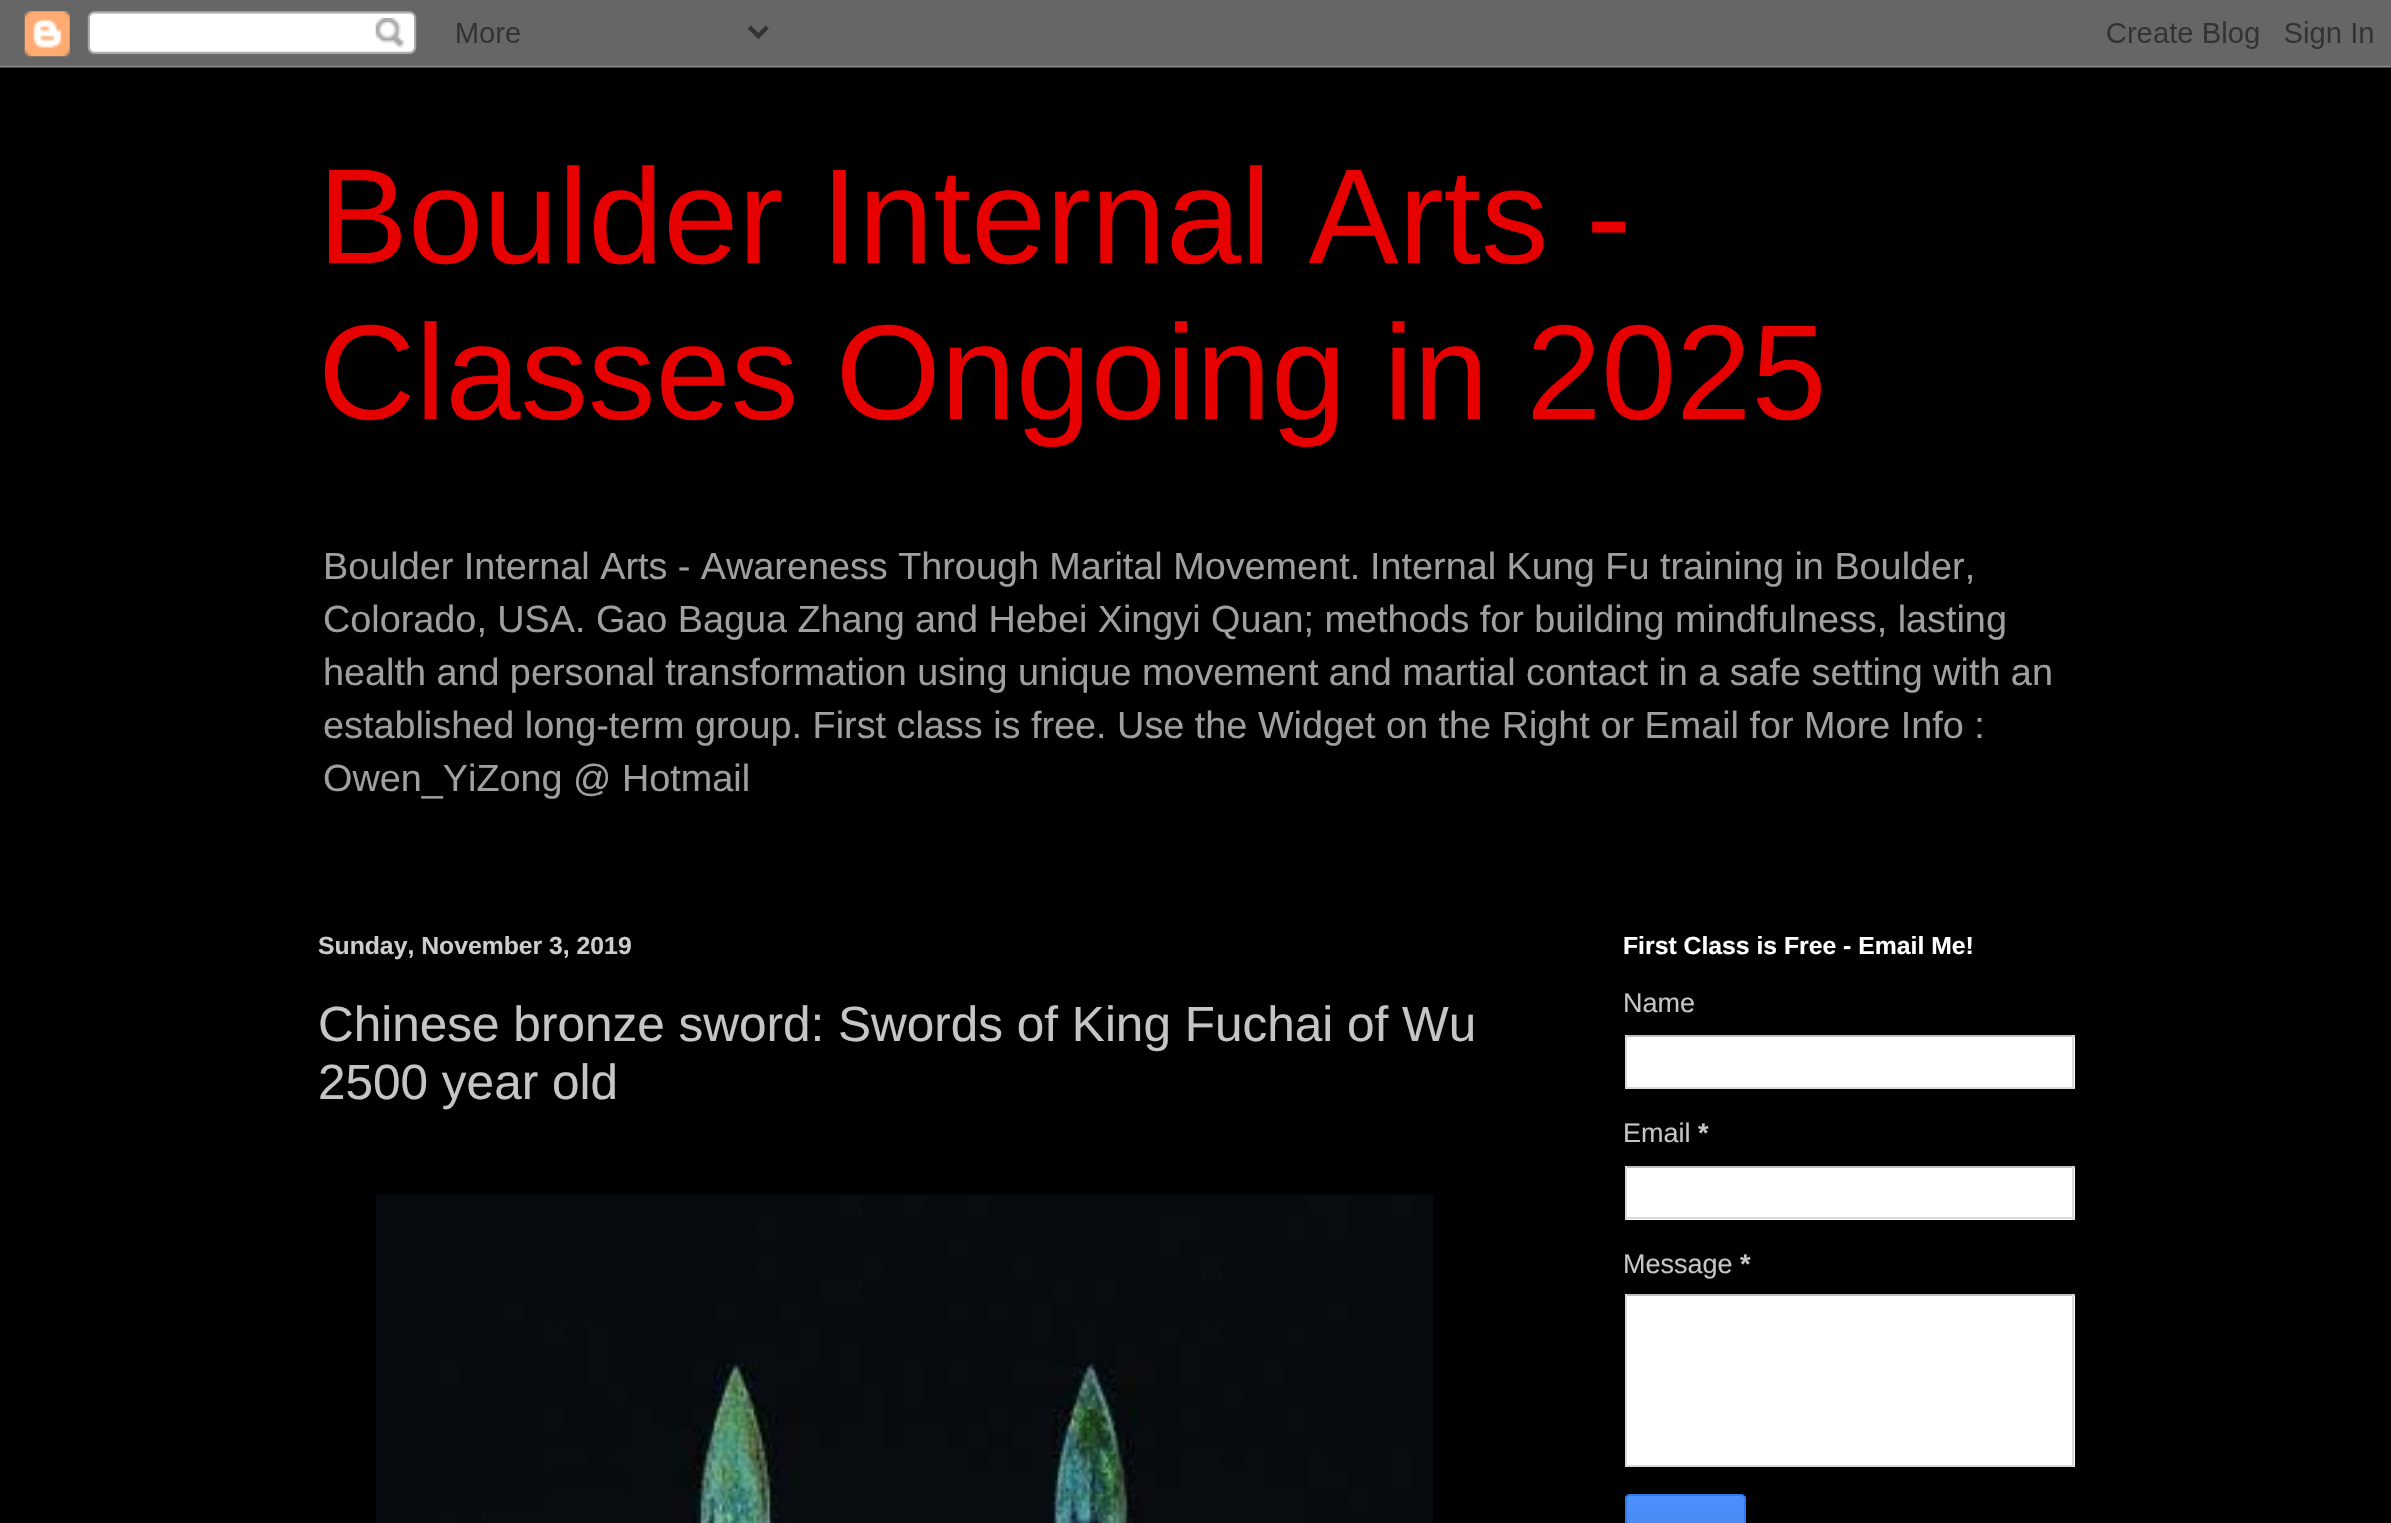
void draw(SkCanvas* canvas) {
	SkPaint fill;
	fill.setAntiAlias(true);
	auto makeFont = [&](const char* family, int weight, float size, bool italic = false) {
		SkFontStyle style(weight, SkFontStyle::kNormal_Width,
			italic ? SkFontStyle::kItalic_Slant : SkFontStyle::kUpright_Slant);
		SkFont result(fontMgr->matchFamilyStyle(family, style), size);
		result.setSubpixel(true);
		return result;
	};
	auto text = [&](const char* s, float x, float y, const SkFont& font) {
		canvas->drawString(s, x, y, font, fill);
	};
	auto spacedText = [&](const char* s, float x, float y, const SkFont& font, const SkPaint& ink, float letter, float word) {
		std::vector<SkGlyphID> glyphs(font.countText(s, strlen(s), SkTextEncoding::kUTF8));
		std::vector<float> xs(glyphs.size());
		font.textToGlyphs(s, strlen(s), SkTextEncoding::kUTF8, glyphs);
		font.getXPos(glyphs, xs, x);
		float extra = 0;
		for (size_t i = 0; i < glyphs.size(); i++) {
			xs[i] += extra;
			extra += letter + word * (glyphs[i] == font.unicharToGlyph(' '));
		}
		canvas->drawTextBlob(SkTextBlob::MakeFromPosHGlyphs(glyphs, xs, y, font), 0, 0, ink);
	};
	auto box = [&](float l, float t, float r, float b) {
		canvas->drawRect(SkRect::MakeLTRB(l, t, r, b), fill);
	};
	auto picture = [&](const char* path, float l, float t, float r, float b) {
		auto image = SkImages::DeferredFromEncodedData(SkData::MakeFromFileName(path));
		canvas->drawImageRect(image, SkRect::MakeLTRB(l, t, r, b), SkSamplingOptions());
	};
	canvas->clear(0xFF000000);
	picture("image0.png", 0, 0, 2391, 68);
	picture("image1.png", 376, 1194, 1433, 1523);
	fill.setColor(0xFFFFFFFF);
	box(1627, 1037, 2075, 1087);
	fill.setColor(0xFFC0C0C0);
	box(1625, 1035, 2075, 1037);
	fill.setColor(0xFFD9D9D9);
	box(2072, 1035, 2074, 1089);
	box(1625, 1087, 2075, 1089);
	box(1625, 1035, 1627, 1089);
	fill.setColor(0xFFFFFFFF);
	box(1627, 1168, 2075, 1220);
	fill.setColor(0xFFC0C0C0);
	box(1625, 1166, 2075, 1168);
	fill.setColor(0xFFD9D9D9);
	box(2072, 1166, 2074, 1220);
	box(1625, 1217, 2075, 1219);
	box(1625, 1166, 1627, 1220);
	fill.setColor(0xFFFFFFFF);
	box(1627, 1296, 2075, 1465);
	fill.setColor(0xFFC0C0C0);
	box(1625, 1294, 2075, 1296);
	fill.setColor(0xFFD9D9D9);
	box(2072, 1294, 2074, 1467);
	box(1625, 1465, 2075, 1467);
	box(1625, 1294, 1627, 1467);
	canvas->save();
	canvas->clipPath(SkPathBuilder().moveTo(1630, 1494).lineTo(1741, 1494).cubicTo(1744, 1494, 1746, 1496, 1746, 1499).lineTo(1746, 1543).cubicTo(1746, 1546, 1744, 1548, 1741, 1548).lineTo(1630, 1548).cubicTo(1627, 1548, 1625, 1546, 1625, 1543).lineTo(1625, 1499).cubicTo(1625, 1496, 1627, 1494, 1630, 1494).close().detach(), true);
	{
		const SkColor colors[] = {0xFF4D90FE, 0xFF4787ED};
		const float stops[] = {0, 1};
		const SkPoint ends[] = {{1685, 1496}, {1685, 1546}};
		fill.setShader(SkGradientShader::MakeLinear(ends, colors, stops, 2, SkTileMode::kClamp));
		fill.setAlpha(255);
	}
	box(1625, 1496, 1746, 1523);
	canvas->restore();
	fill.setStyle(SkPaint::kStroke_Style);
	fill.setStrokeWidth(2);
	fill.setShader(nullptr);
	fill.setColor(0xFF3079ED);
	canvas->drawRoundRect(SkRect::MakeLTRB(1626, 1495, 1745, 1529), 4, 4, fill);
	auto font1 = makeFont("Liberation Sans", 400, 135);
	fill.setStyle(SkPaint::kFill_Style);
	fill.setColor(0xFFE60000);
	text("Boulder Internal Arts -", 318, 263, font1);
	text("Classes Ongoing in 2025", 318, 419, font1);
	auto font2 = makeFont("Liberation Sans", 400, 37.8f);
	fill.setColor(0xFF9F9F9F);
	spacedText("Boulder Internal Arts - Awareness Through Marital Movement.", 323, 579, font2, fill, 0, -0.1f);
	text("Internal Kung Fu training in Boulder,", 1370, 579, font2);
	spacedText("Colorado, USA. Gao Bagua Zhang and Hebei Xingyi Quan; methods for building mindfulness, lasting", 323, 632, font2, fill, 0, -0.1f);
	spacedText("health and personal transformation using unique movement and martial contact in a safe setting with an", 323, 685, font2, fill, 0, -0.1f);
	text("established long-term group. First class is free. Use the Widget on the Right or Email for More Info :", 323, 738, font2);
	text("Owen_YiZong @ Hotmail", 323, 791, font2);
	auto font3 = makeFont("Liberation Sans", 700, 24.75f);
	fill.setColor(0xFFCCCCCC);
	text("Sunday, November 3, 2019", 318, 954, font3);
	auto font4 = makeFont("Liberation Sans", 400, 49.5f);
	fill.setColor(0xFFC5C5C5);
	text("Chinese bronze sword: Swords of King Fuchai of Wu", 318, 1041, font4);
	text("2500 year old", 318, 1099, font4);
	fill.setColor(0xFFFFFFFF);
	text("First Class is Free - Email Me!", 1623, 954, font3);
	auto font5 = makeFont("Liberation Sans", 400, 27);
	fill.setColor(0xFFC5C5C5);
	text("Name", 1623, 1012, font5);
	text("Email", 1623, 1142, font5);
	auto font6 = makeFont("Liberation Sans", 700, 27);
	text("*", 1698, 1142, font6);
	text("Message", 1623, 1273, font5);
	text("*", 1740, 1273, font6);
}
